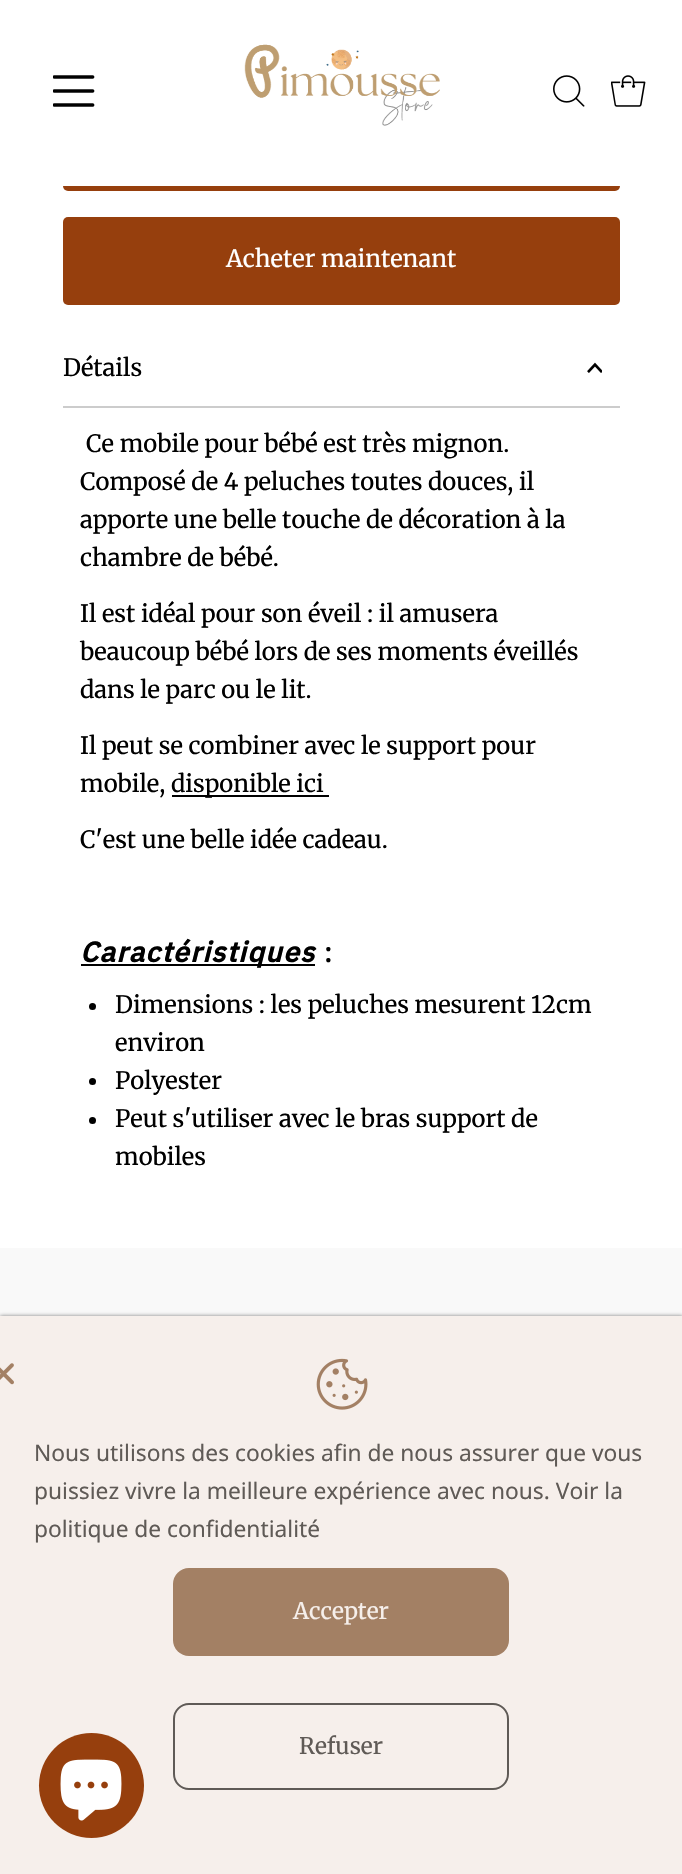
void draw(SkCanvas* canvas) {
	SkPaint fill;
	fill.setAntiAlias(true);
	auto makeFont = [&](const char* family, int weight, float size, bool italic = false) {
		SkFontStyle style(weight, SkFontStyle::kNormal_Width,
			italic ? SkFontStyle::kItalic_Slant : SkFontStyle::kUpright_Slant);
		SkFont result(fontMgr->matchFamilyStyle(family, style), size);
		result.setSubpixel(true);
		return result;
	};
	auto text = [&](const char* s, float x, float y, const SkFont& font) {
		canvas->drawString(s, x, y, font, fill);
	};
	auto spacedText = [&](const char* s, float x, float y, const SkFont& font, const SkPaint& ink, float letter, float word) {
		std::vector<SkGlyphID> glyphs(font.countText(s, strlen(s), SkTextEncoding::kUTF8));
		std::vector<float> xs(glyphs.size());
		font.textToGlyphs(s, strlen(s), SkTextEncoding::kUTF8, glyphs);
		font.getXPos(glyphs, xs, x);
		float extra = 0;
		for (size_t i = 0; i < glyphs.size(); i++) {
			xs[i] += extra;
			extra += letter + word * (glyphs[i] == font.unicharToGlyph(' '));
		}
		canvas->drawTextBlob(SkTextBlob::MakeFromPosHGlyphs(glyphs, xs, y, font), 0, 0, ink);
	};
	auto box = [&](float l, float t, float r, float b) {
		canvas->drawRect(SkRect::MakeLTRB(l, t, r, b), fill);
	};
	auto roundBox = [&](float l, float t, float r, float b, float radius) {
		canvas->drawRoundRect(SkRect::MakeLTRB(l, t, r, b), radius, radius, fill);
	};
	auto picture = [&](const char* path, float l, float t, float r, float b) {
		auto image = SkImages::DeferredFromEncodedData(SkData::MakeFromFileName(path));
		canvas->drawImageRect(image, SkRect::MakeLTRB(l, t, r, b), SkSamplingOptions());
	};
	canvas->clear(0xFFFFFFFF);
	fill.setColor(0xFF963F0D);
	roundBox(63, 103, 620, 191, 5);
	fill.setColor(0xFFFFFFFF);
	box(63, 103, 620, 186);
	picture("image0.png", 53, 75, 95, 107);
	picture("image1.png", 244, 44, 440, 126);
	picture("image2.png", 553, 75, 585, 107);
	picture("image3.png", 611, 75, 646, 107);
	fill.setColor(0xFF963F0D);
	roundBox(63, 217, 620, 305, 5);
	fill.setColor(0xFFCCCCCC);
	box(63, 406, 620, 408);
	picture("image4.png", 587, 362, 602, 373);
	fill.setColor(0xFF000000);
	box(172, 795, 329, 797);
	box(81, 964, 315, 966);
	canvas->drawCircle(92.5f, 1006.5f, 3.5f, fill);
	canvas->drawCircle(92.5f, 1081.5f, 3.5f, fill);
	canvas->drawCircle(92.5f, 1120.5f, 3.5f, fill);
	fill.setColor(0xFFF9F9F9);
	box(0, 1248, 682, 1316);
	fill.setColor(0x80000000);
	fill.setMaskFilter(SkMaskFilter::MakeBlur(kNormal_SkBlurStyle, 2));
	canvas->drawRect(SkRect::MakeLTRB(0, 1316, 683, 1874), fill);
	fill.setMaskFilter(nullptr);
	fill.setColor(0xFFF6EFEB);
	box(0, 1316, 682, 1874);
	picture("image5.png", 0, 1363, 14, 1385);
	picture("image6.png", 316, 1358, 368, 1410);
	fill.setColor(0xFFA38064);
	roundBox(173, 1568, 509, 1656, 16);
	fill.setStyle(SkPaint::kStroke_Style);
	fill.setStrokeWidth(2);
	fill.setColor(0xFF5F5A56);
	canvas->drawRoundRect(SkRect::MakeLTRB(174, 1704, 508, 1789), 15, 15, fill);
	fill.setStyle(SkPaint::kFill_Style);
	fill.setColor(0xFF963F0D);
	canvas->drawCircle(91.5f, 1785.5f, 52.5f, fill);
	picture("image7.png", 60, 1759, 122, 1821);
	auto font1 = makeFont("Merriweather", 400, 23.8f);
	fill.setColor(0xFFFFFFFF);
	text("Acheter maintenant", 226, 267, font1);
	fill.setColor(0xFF000000);
	text("Détails", 63, 376, font1);
	text("Ce mobile pour bébé est très mignon.", 86, 452, font1);
	text("Composé de 4 peluches toutes douces, il", 80, 490, font1);
	text("apporte une belle touche de décoration à la", 80, 528, font1);
	text("chambre de bébé.", 80, 566, font1);
	text("Il est idéal pour son éveil : il amusera", 80, 622, font1);
	text("beaucoup bébé lors de ses moments éveillés", 80, 660, font1);
	text("dans le parc ou le lit.", 80, 698, font1);
	text("Il peut se combiner avec le support pour", 80, 754, font1);
	text("mobile,", 80, 792, font1);
	text("disponible ici", 171, 792, font1);
	text("C'est une belle idée cadeau.", 80, 848, font1);
	auto font2 = makeFont("IBM Plex Sans", 700, 28.25f, true);
	spacedText("Caractéristiques", 80, 962, font2, fill, 1.4f, 0);
	auto font3 = makeFont("IBM Plex Sans", 500, 28.25f);
	spacedText(":", 324, 962, font3, fill, 1.4f, 0);
	text("Dimensions : les peluches mesurent 12cm", 115, 1013, font1);
	text("environ", 115, 1051, font1);
	text("Polyester", 115, 1089, font1);
	text("Peut s'utiliser avec le bras support de", 115, 1127, font1);
	text("mobiles", 115, 1165, font1);
	auto font4 = makeFont("Noto Sans", 400, 22.75f);
	fill.setColor(0xFF5F5A56);
	text("Nous utilisons des cookies afin de nous assurer que vous", 34, 1461, font4);
	text("puissiez vivre la meilleure expérience avec nous. Voir la", 34, 1499, font4);
	text("politique de confidentialité", 34, 1537, font4);
	auto font5 = makeFont("Merriweather", 400, 22.75f);
	fill.setColor(0xFFF6EFEB);
	text("Accepter", 293, 1619, font5);
	fill.setColor(0xFF5F5A56);
	text("Refuser", 299, 1754, font5);
}
